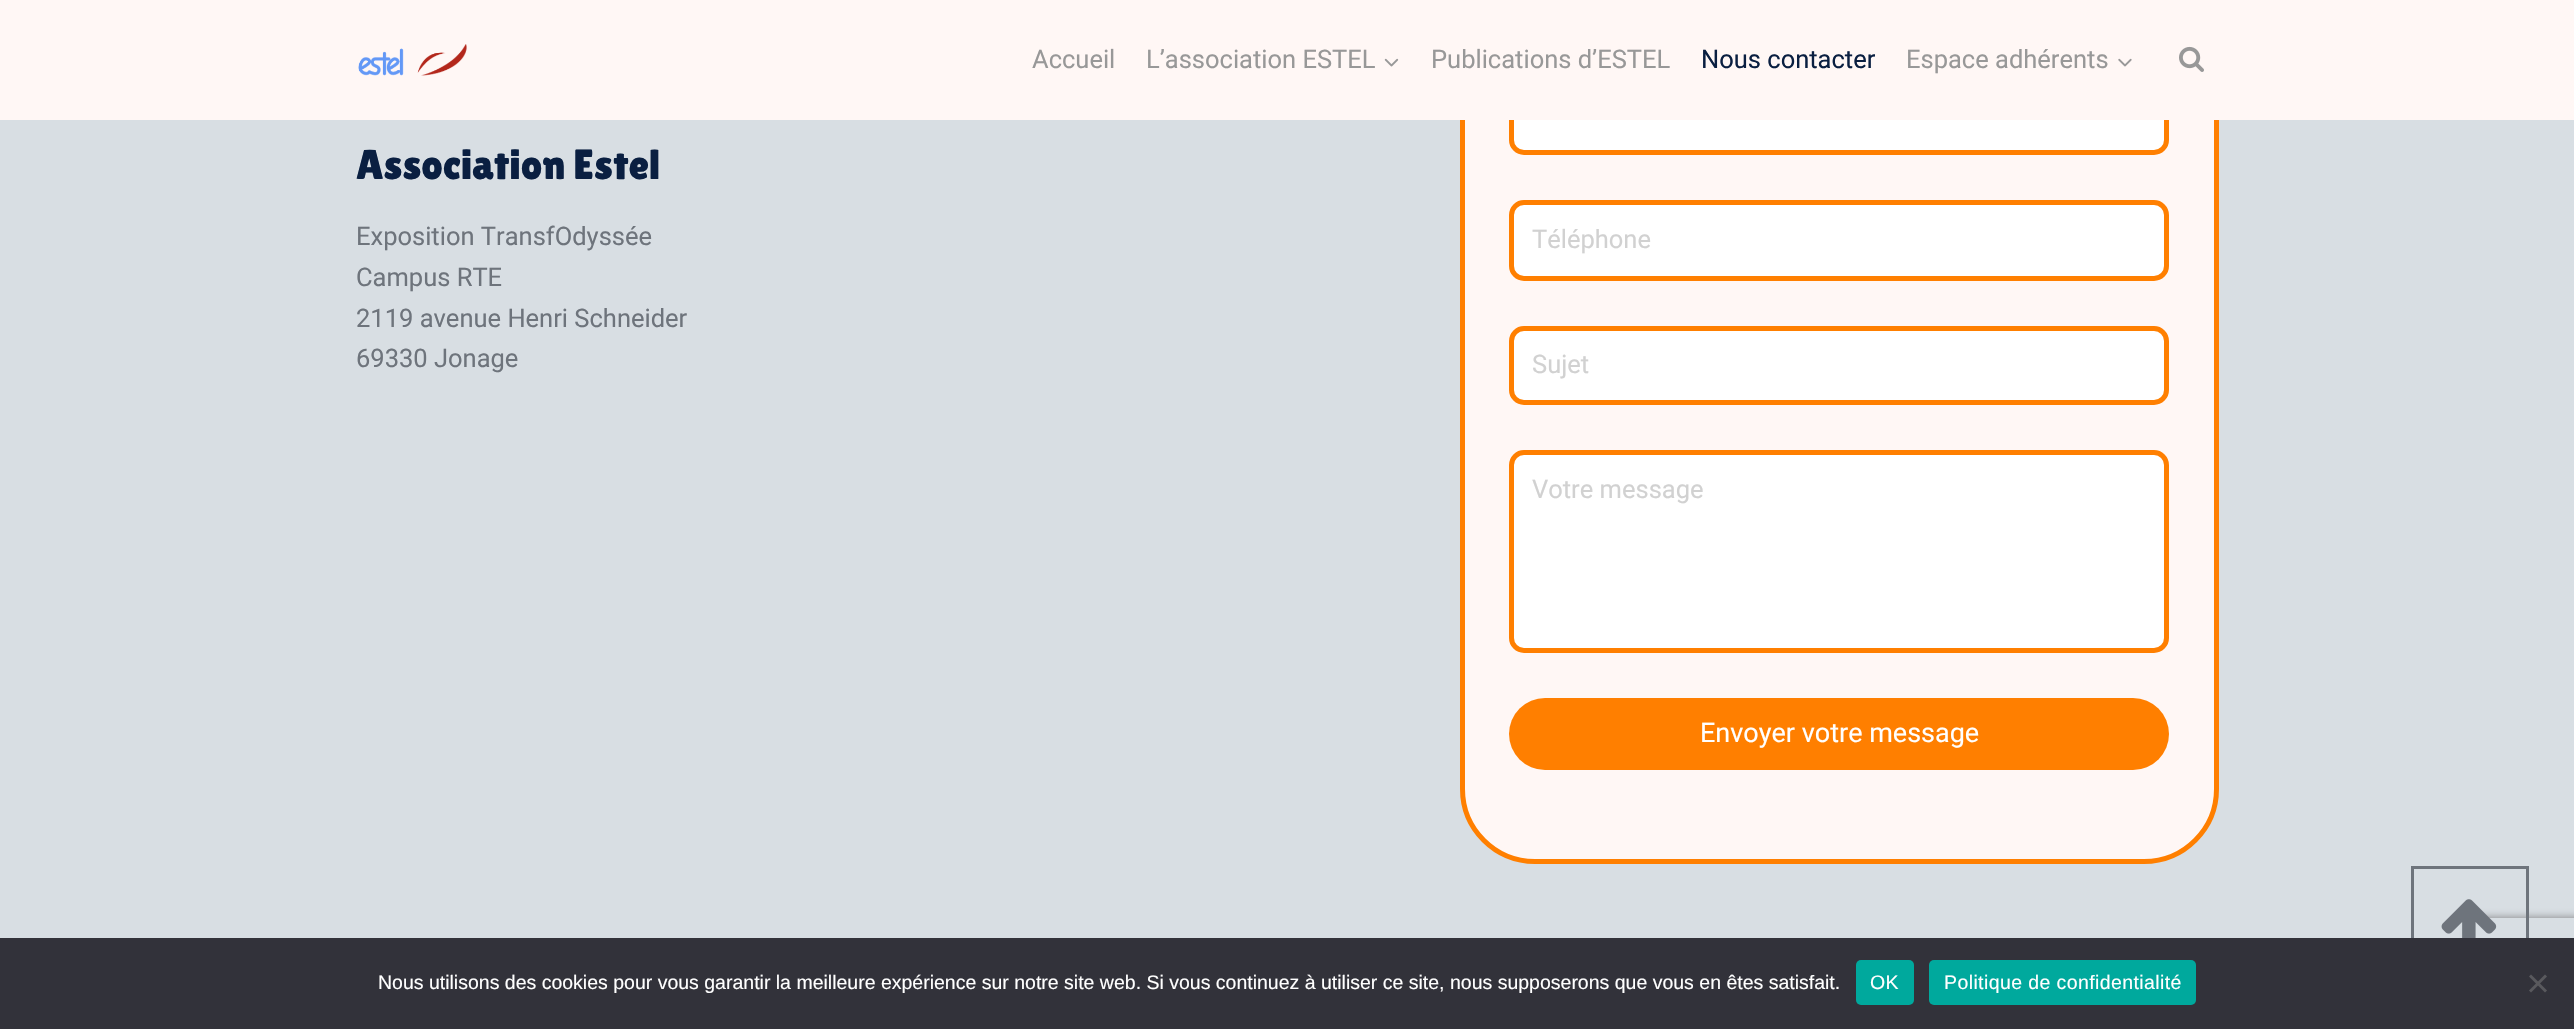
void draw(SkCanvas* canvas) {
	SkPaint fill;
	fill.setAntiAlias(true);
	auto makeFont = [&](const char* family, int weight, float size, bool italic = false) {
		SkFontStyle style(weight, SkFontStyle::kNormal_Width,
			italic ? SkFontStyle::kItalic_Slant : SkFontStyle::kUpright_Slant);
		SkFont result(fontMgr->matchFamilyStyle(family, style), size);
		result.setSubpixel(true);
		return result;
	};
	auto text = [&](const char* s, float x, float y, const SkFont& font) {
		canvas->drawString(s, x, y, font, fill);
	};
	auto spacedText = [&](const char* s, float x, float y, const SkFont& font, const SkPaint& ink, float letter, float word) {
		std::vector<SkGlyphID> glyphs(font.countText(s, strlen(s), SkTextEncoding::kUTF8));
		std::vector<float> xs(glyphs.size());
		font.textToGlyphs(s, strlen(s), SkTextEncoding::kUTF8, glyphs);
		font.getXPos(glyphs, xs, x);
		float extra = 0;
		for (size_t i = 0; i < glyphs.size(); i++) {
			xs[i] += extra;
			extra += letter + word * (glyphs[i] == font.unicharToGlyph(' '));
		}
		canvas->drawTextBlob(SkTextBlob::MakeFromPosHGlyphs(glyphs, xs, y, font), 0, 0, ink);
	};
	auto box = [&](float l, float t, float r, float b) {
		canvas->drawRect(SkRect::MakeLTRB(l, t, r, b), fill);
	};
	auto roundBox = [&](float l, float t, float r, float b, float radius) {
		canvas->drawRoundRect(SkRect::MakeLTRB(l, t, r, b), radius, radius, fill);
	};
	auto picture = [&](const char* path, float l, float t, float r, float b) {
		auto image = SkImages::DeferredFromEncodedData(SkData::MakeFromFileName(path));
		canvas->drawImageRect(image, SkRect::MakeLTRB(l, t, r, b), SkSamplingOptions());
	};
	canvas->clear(0xFFD8DEE3);
	fill.setColor(0xFFFFF7F5);
	canvas->drawRoundRect(SkRect::MakeLTRB(1462.5f, -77.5f, 2216.5f, 861.5f), 72.5f, 72.5f, fill);
	fill.setStyle(SkPaint::kStroke_Style);
	fill.setStrokeWidth(5);
	fill.setColor(0xFFFF7F00);
	canvas->drawRoundRect(SkRect::MakeLTRB(1462.5f, -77.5f, 2216.5f, 861.5f), 72.5f, 72.5f, fill);
	fill.setStyle(SkPaint::kFill_Style);
	fill.setColor(0xFFFFFFFF);
	canvas->drawRoundRect(SkRect::MakeLTRB(1511.5f, 77.5f, 2166.5f, 152.5f), 12.5f, 12.5f, fill);
	fill.setStyle(SkPaint::kStroke_Style);
	fill.setColor(0xFFFF7F00);
	canvas->drawRoundRect(SkRect::MakeLTRB(1511.5f, 77.5f, 2166.5f, 152.5f), 12.5f, 12.5f, fill);
	fill.setStyle(SkPaint::kFill_Style);
	fill.setColor(0xFFFFF7F5);
	box(0, 0, 2574, 120);
	picture("image0.png", 358, 44, 467, 76);
	picture("image1.png", 1384, 58, 1399, 67);
	picture("image2.png", 2118, 58, 2132, 67);
	picture("image3.png", 2179, 46, 2204, 72);
	fill.setColor(0xFFFFFFFF);
	canvas->drawRoundRect(SkRect::MakeLTRB(1511.5f, 202.5f, 2166.5f, 278.5f), 12.5f, 12.5f, fill);
	fill.setStyle(SkPaint::kStroke_Style);
	fill.setColor(0xFFFF7F00);
	canvas->drawRoundRect(SkRect::MakeLTRB(1511.5f, 202.5f, 2166.5f, 278.5f), 12.5f, 12.5f, fill);
	fill.setStyle(SkPaint::kFill_Style);
	fill.setColor(0xFFFFFFFF);
	canvas->drawRoundRect(SkRect::MakeLTRB(1511.5f, 328.5f, 2166.5f, 402.5f), 12.5f, 12.5f, fill);
	fill.setStyle(SkPaint::kStroke_Style);
	fill.setColor(0xFFFF7F00);
	canvas->drawRoundRect(SkRect::MakeLTRB(1511.5f, 328.5f, 2166.5f, 402.5f), 12.5f, 12.5f, fill);
	fill.setStyle(SkPaint::kFill_Style);
	fill.setColor(0xFFFFFFFF);
	canvas->drawRoundRect(SkRect::MakeLTRB(1511.5f, 452.5f, 2166.5f, 650.5f), 12.5f, 12.5f, fill);
	fill.setStyle(SkPaint::kStroke_Style);
	fill.setColor(0xFFFF7F00);
	canvas->drawRoundRect(SkRect::MakeLTRB(1511.5f, 452.5f, 2166.5f, 650.5f), 12.5f, 12.5f, fill);
	fill.setStyle(SkPaint::kFill_Style);
	roundBox(1509, 698, 2169, 770, 36);
	canvas->save();
	canvas->clipPath(SkPathBuilder(SkPathFillType::kEvenOdd).moveTo(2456, 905).lineTo(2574, 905).lineTo(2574, 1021).lineTo(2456, 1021).close().moveTo(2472, 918).lineTo(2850, 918).cubicTo(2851.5f, 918, 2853, 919.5f, 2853, 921).lineTo(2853, 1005).cubicTo(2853, 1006.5f, 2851.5f, 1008, 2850, 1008).lineTo(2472, 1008).cubicTo(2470.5f, 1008, 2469, 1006.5f, 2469, 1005).lineTo(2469, 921).cubicTo(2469, 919.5f, 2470.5f, 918, 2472, 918).close().detach(), true);
	fill.setColor(0xFF808080);
	fill.setMaskFilter(SkMaskFilter::MakeBlur(kNormal_SkBlurStyle, 4));
	canvas->drawRoundRect(SkRect::MakeLTRB(2469, 918, 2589, 1008), 3, 3, fill);
	fill.setMaskFilter(nullptr);
	canvas->restore();
	fill.setStyle(SkPaint::kStroke_Style);
	fill.setStrokeWidth(3);
	fill.setColor(0xFF6E747C);
	canvas->drawRect(SkRect::MakeLTRB(2412.5f, 867.5f, 2527.5f, 982.5f), fill);
	picture("image4.png", 2441, 899, 2497, 938);
	fill.setStyle(SkPaint::kFill_Style);
	fill.setColor(0xFF32323A);
	box(0, 938, 2574, 1029);
	fill.setColor(0xFF00A99D);
	roundBox(1856, 960, 1914, 1005, 5);
	roundBox(1929, 960, 2196, 1005, 5);
	fill.setColor(0xFF59595D);
	canvas->drawPath(SkPathBuilder().moveTo(2545, 974.5f).lineTo(2547, 976.5f).lineTo(2531, 992.5f).lineTo(2529, 990.5f).close().detach(), fill);
	canvas->drawPath(SkPathBuilder().moveTo(2529, 976.5f).lineTo(2531, 974.5f).lineTo(2547, 990.5f).lineTo(2545, 992.5f).close().detach(), fill);
	auto font1 = makeFont("Roboto", 400, 25.5f);
	fill.setColor(0xFF989898);
	text("Accueil", 1032, 68, font1);
	text("L’association ESTEL", 1146, 68, font1);
	text("Publications d’ESTEL", 1431, 68, font1);
	fill.setColor(0xFF0A1F41);
	text("Nous contacter", 1701, 68, font1);
	fill.setColor(0xFF989898);
	text("Espace adhérents", 1906, 68, font1);
	auto font2 = makeFont("Lilita One", 400, 42);
	fill.setColor(0xFF0A1F41);
	text("Association Estel", 356, 179, font2);
	fill.setColor(0xFF6E747C);
	text("Exposition TransfOdyssée", 356, 245, font1);
	text("Campus RTE", 356, 286, font1);
	text("2119 avenue Henri Schneider", 356, 327, font1);
	text("69330 Jonage", 356, 367, font1);
	fill.setColor(0xFFD1D1D1);
	text("Téléphone", 1532, 248, font1);
	text("Sujet", 1532, 373, font1);
	text("Votre message", 1532, 498, font1);
	auto font3 = makeFont("Roboto", 400, 27);
	fill.setColor(0xFFFFFFFF);
	text("Envoyer votre message", 1700, 742, font3);
	auto font4 = makeFont("Liberation Sans", 400, 19.5f);
	text("Nous utilisons des cookies pour vous garantir la meilleure expérience sur notre site web. Si vous continuez à utiliser ce site, nous supposerons que vous en êtes satisfait.", 378, 989, font4);
	spacedText("OK", 1870, 989, font4, fill, 0.4f, 0);
	spacedText("Politique de confidentialité", 1944, 989, font4, fill, 0.4f, 0);
}
